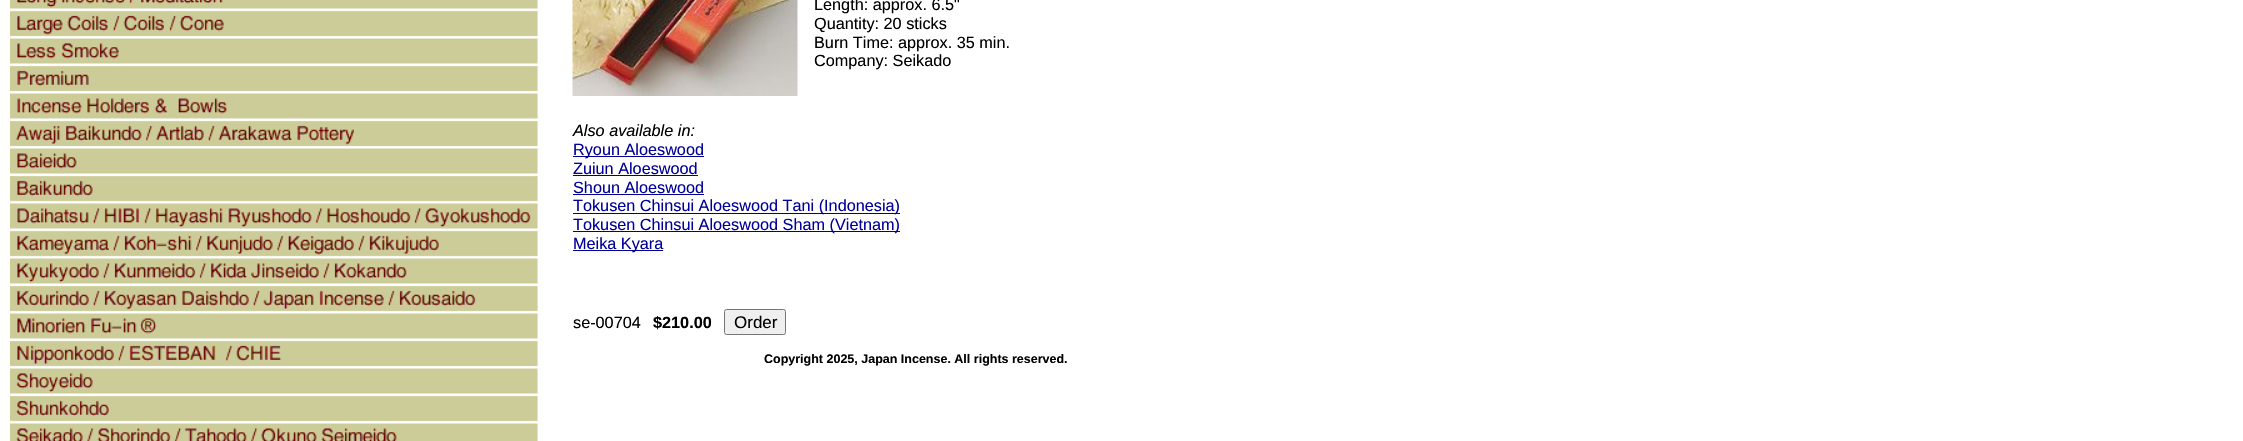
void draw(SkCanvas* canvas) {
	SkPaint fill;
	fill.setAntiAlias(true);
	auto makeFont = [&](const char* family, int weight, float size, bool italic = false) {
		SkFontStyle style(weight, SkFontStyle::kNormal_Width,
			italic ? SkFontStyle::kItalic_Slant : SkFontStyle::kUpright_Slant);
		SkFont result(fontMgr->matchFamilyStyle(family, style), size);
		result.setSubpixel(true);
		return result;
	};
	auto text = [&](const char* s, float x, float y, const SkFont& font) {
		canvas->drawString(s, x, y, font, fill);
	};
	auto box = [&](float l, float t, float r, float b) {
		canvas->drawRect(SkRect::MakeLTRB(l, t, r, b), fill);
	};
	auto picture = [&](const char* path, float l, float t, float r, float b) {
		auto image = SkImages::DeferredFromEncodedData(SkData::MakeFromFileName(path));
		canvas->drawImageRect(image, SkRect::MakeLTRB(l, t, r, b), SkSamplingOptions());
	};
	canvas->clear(0xFFFFFFFF);
	picture("image0.png", 10, 0, 538, 441);
	fill.setColor(0xFF000099);
	box(573, 156, 704, 157);
	box(573, 175, 698, 176);
	box(573, 194, 704, 195);
	box(573, 213, 900, 214);
	box(573, 231, 900, 232);
	box(573, 250, 663, 251);
	fill.setColor(0xFFEFEFEF);
	canvas->drawRoundRect(SkRect::MakeLTRB(724.5f, 309.5f, 785.5f, 334.5f), 2, 2, fill);
	fill.setStyle(SkPaint::kStroke_Style);
	fill.setStrokeWidth(1);
	fill.setColor(0xFF767676);
	canvas->drawRoundRect(SkRect::MakeLTRB(724.5f, 309.5f, 785.5f, 334.5f), 2, 2, fill);
	picture("image1.png", 572, 0, 798, 96);
	auto font1 = makeFont("Liberation Sans", 400, 16.25f);
	fill.setStyle(SkPaint::kFill_Style);
	fill.setColor(0xFF000000);
	text("Length: approx. 6.5\"", 814, 10, font1);
	text("Quantity: 20 sticks", 814, 29, font1);
	text("Burn Time: approx. 35 min.", 814, 48, font1);
	text("Company: Seikado", 814, 66, font1);
	auto font2 = makeFont("Liberation Sans", 400, 16.25f, true);
	text("Also available in:", 573, 136, font2);
	fill.setColor(0xFF000099);
	text("Ryoun Aloeswood", 573, 155, font1);
	text("Zuiun Aloeswood", 573, 174, font1);
	text("Shoun Aloeswood", 573, 193, font1);
	text("Tokusen Chinsui Aloeswood Tani (Indonesia)", 573, 211, font1);
	text("Tokusen Chinsui Aloeswood Sham (Vietnam)", 573, 230, font1);
	text("Meika Kyara", 573, 249, font1);
	fill.setColor(0xFF000000);
	text("se-00704", 573, 328, font1);
	auto font3 = makeFont("Liberation Sans", 700, 16.25f);
	text("$210.00", 653, 328, font3);
	auto font4 = makeFont("Liberation Sans", 400, 17);
	text("Order", 734, 328, font4);
	auto font5 = makeFont("Liberation Sans", 700, 12.5f);
	text("Copyright 2025, Japan Incense. All rights reserved.", 764, 363, font5);
}
